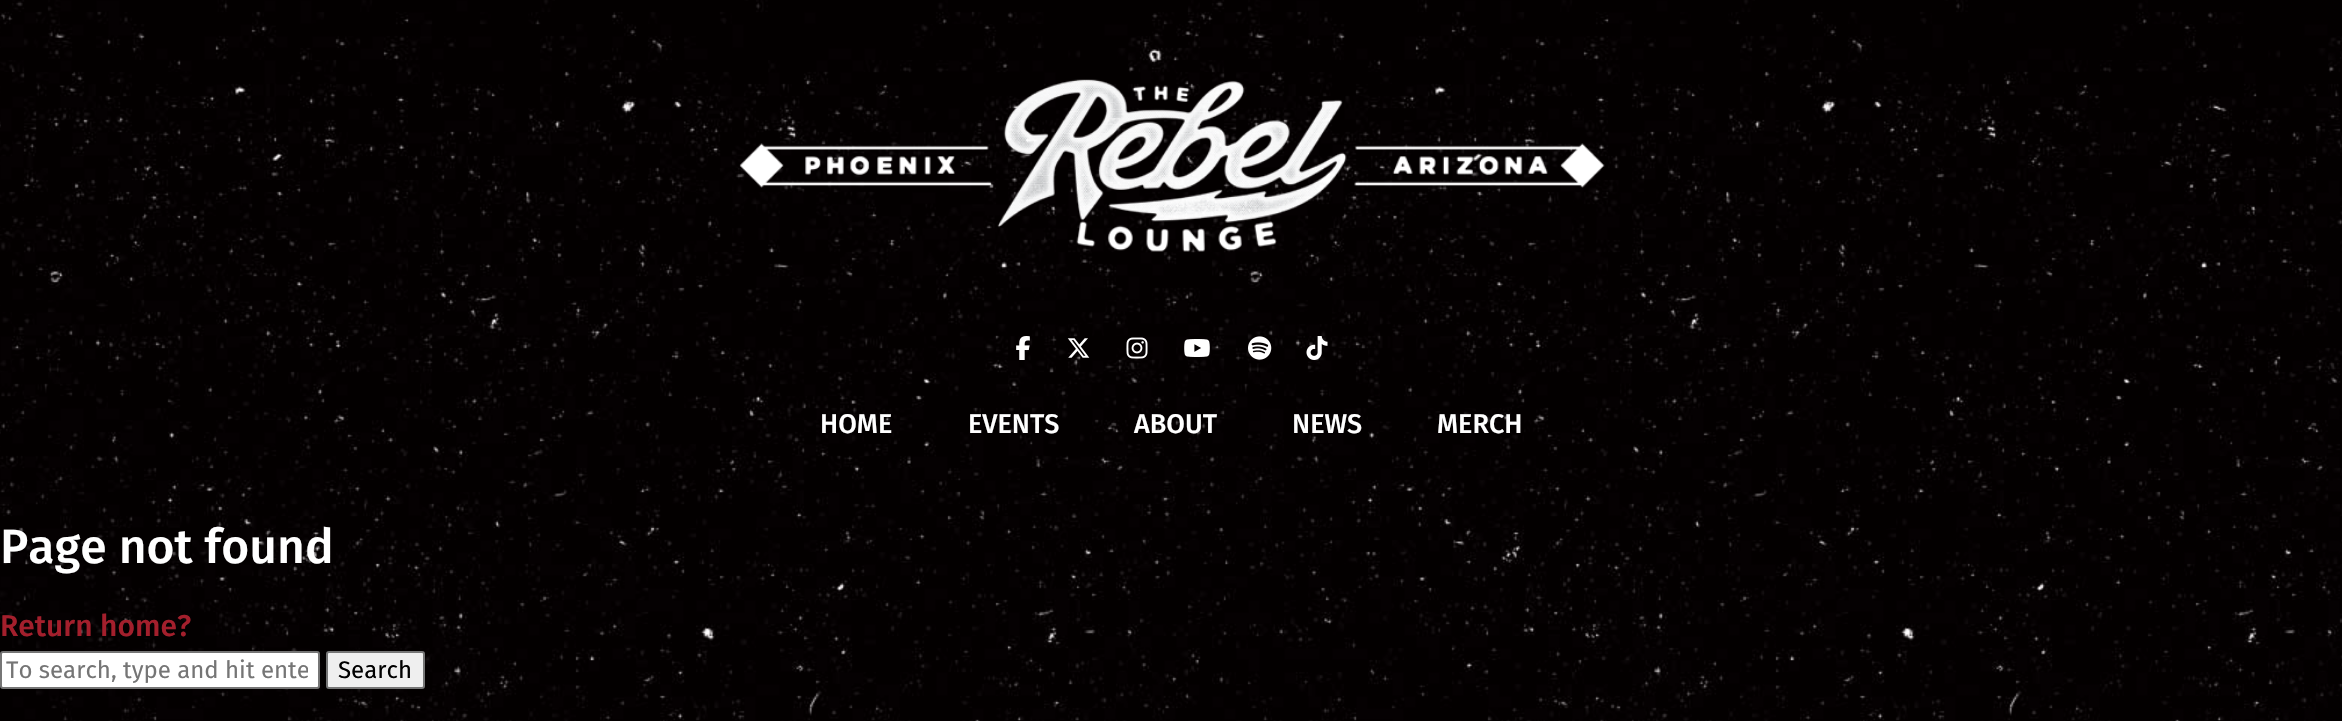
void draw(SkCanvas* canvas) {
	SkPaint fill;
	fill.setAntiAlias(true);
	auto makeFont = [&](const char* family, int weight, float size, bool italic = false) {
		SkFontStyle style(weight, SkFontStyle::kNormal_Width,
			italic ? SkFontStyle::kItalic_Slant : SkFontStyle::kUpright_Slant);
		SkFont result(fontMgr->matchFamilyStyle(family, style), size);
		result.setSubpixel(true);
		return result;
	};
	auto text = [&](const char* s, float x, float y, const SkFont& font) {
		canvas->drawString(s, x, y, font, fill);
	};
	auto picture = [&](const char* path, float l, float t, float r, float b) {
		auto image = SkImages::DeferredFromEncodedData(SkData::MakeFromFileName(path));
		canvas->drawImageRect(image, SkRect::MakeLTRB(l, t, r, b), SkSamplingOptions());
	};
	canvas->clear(0xFFFFFFFF);
	picture("image0.png", 0, 0, 2342, 721);
	picture("image1.png", 739, 79, 1605, 252);
	picture("image2.png", 1016, 336, 1030, 360);
	picture("image3.png", 1067, 338, 1090, 358);
	picture("image4.png", 1126, 337, 1148, 359);
	picture("image5.png", 1184, 339, 1210, 357);
	picture("image6.png", 1248, 336, 1272, 360);
	picture("image7.png", 1306, 336, 1328, 360);
	fill.setColor(0xFFFFFFFF);
	canvas->drawRoundRect(SkRect::MakeLTRB(1, 652, 319, 688), 2, 2, fill);
	fill.setStyle(SkPaint::kStroke_Style);
	fill.setStrokeWidth(2);
	fill.setColor(0xFF767676);
	canvas->drawRoundRect(SkRect::MakeLTRB(1, 652, 319, 688), 2, 2, fill);
	fill.setStyle(SkPaint::kFill_Style);
	fill.setColor(0xFFEFEFEF);
	canvas->drawRoundRect(SkRect::MakeLTRB(327, 652, 424, 688), 2, 2, fill);
	fill.setStyle(SkPaint::kStroke_Style);
	fill.setColor(0xFF767676);
	canvas->drawRoundRect(SkRect::MakeLTRB(327, 652, 424, 688), 2, 2, fill);
	auto font1 = makeFont("Fira Sans", 500, 27);
	fill.setStyle(SkPaint::kFill_Style);
	fill.setColor(0xFFFFFFFF);
	text("HOME", 820, 433, font1);
	text("EVENTS", 968, 433, font1);
	text("ABOUT", 1134, 433, font1);
	text("NEWS", 1292, 433, font1);
	text("MERCH", 1437, 433, font1);
	auto font2 = makeFont("Fira Sans", 500, 48);
	text("Page not found", 0, 563, font2);
	auto font3 = makeFont("Fira Sans", 500, 30);
	fill.setColor(0xFFA31F2C);
	text("Return home?", 0, 636, font3);
	canvas->save();
	canvas->clipRect(SkRect::MakeLTRB(6, 656, 308, 684));
	auto font4 = makeFont("Fira Sans", 400, 24);
	fill.setColor(0xFF757575);
	text("To search, type and hit ente", 6, 678, font4);
	canvas->restore();
	fill.setColor(0xFF000000);
	text("Search", 338, 678, font4);
}
